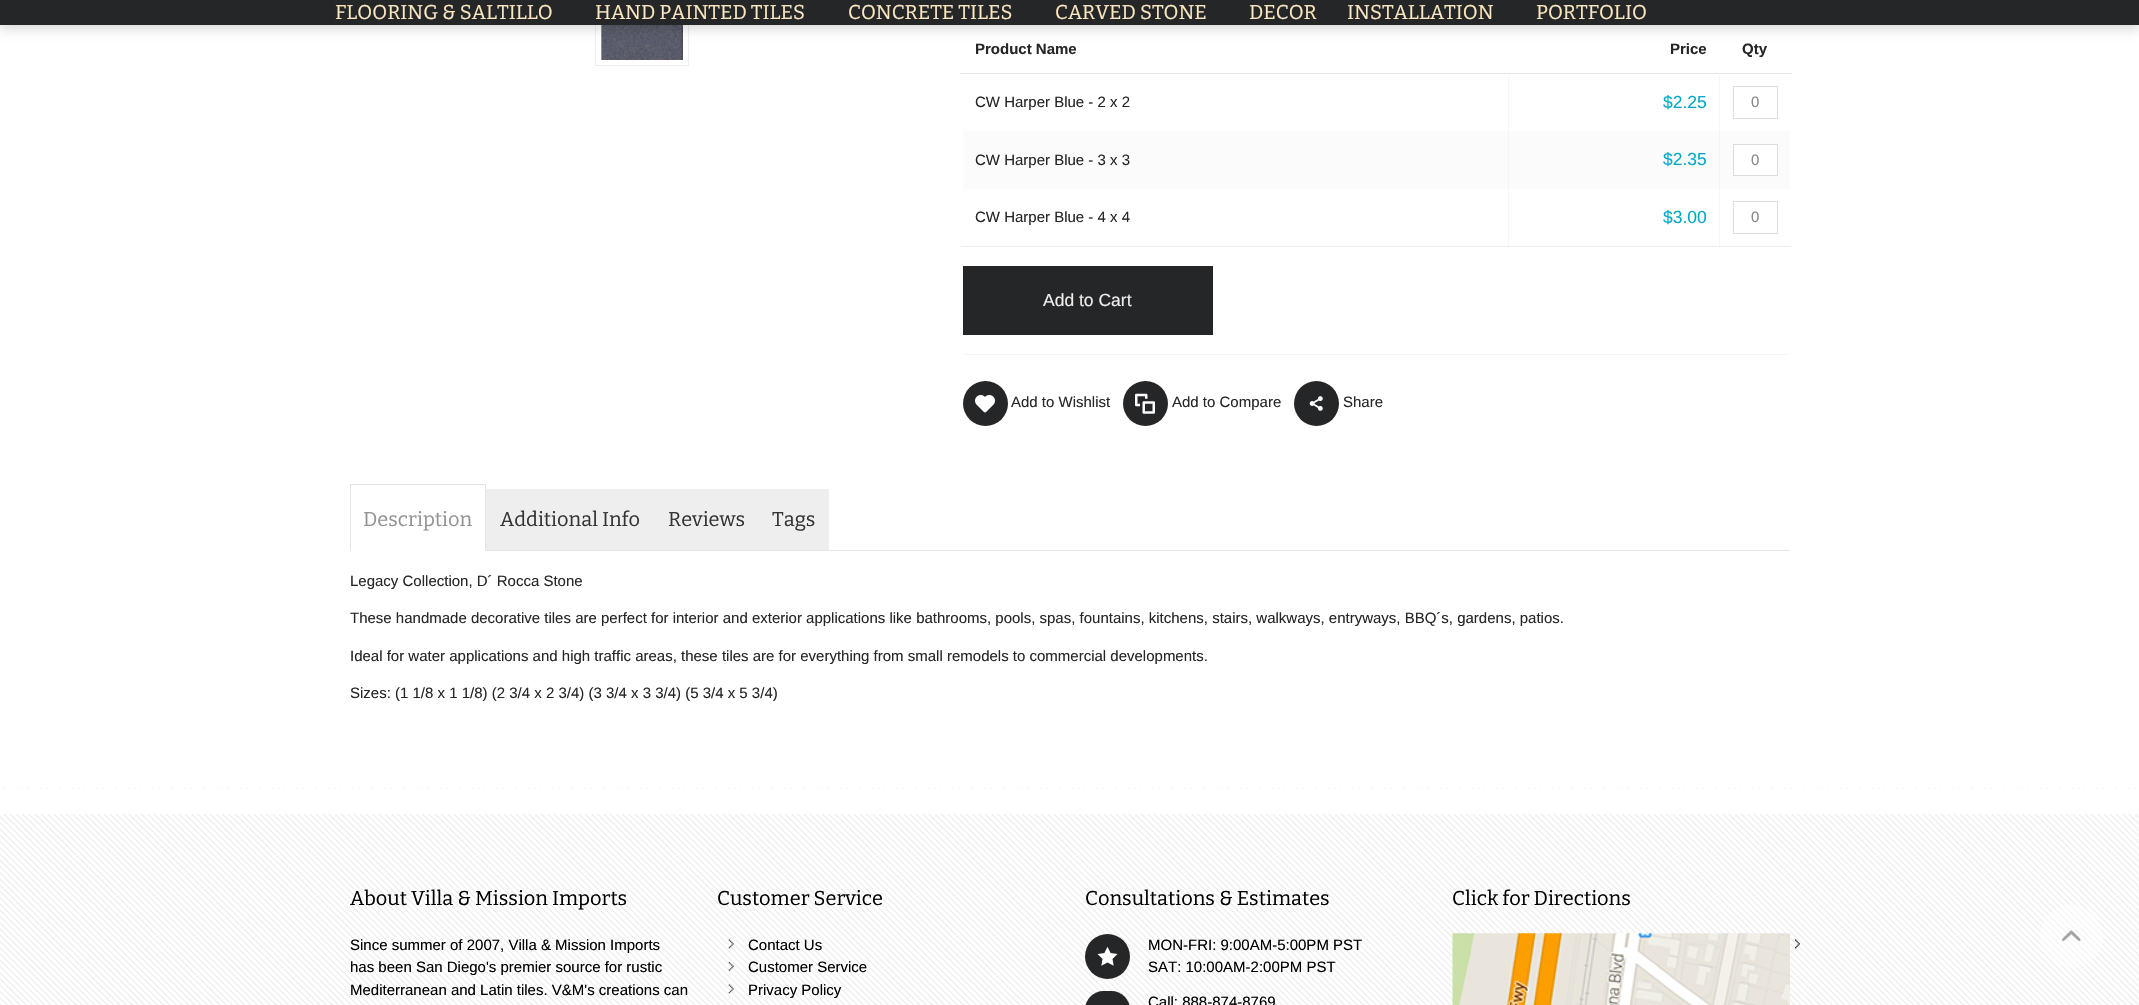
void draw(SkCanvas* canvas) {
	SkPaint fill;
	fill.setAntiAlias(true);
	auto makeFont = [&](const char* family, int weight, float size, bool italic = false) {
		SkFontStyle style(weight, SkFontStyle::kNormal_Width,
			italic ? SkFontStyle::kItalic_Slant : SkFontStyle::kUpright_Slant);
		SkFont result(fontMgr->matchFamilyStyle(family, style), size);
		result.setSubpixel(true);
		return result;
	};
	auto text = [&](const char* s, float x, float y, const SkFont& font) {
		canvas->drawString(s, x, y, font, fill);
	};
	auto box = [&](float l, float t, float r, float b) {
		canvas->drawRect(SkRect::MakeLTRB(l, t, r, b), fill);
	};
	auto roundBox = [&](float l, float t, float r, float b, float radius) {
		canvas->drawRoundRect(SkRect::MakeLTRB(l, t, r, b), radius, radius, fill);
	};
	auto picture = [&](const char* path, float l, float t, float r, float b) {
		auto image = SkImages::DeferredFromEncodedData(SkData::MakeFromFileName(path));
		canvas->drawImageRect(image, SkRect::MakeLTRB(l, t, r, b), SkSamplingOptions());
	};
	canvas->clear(0xFFFFFFFF);
	fill.setStyle(SkPaint::kStroke_Style);
	fill.setStrokeWidth(1);
	fill.setColor(0xFFEEEEEE);
	canvas->drawRect(SkRect::MakeLTRB(595.5f, -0.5f, 688.5f, 65.5f), fill);
	picture("image0.png", 601, 25, 683, 60);
	fill.setStyle(SkPaint::kFill_Style);
	fill.setColor(0x26000000);
	fill.setMaskFilter(SkMaskFilter::MakeBlur(kNormal_SkBlurStyle, 6));
	canvas->drawRect(SkRect::MakeLTRB(0, 4, 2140, 29), fill);
	fill.setMaskFilter(nullptr);
	fill.setColor(0xFF252628);
	box(0, 0, 2139, 25);
	fill.setColor(0xFFE5E5E5);
	box(961, 73, 1791, 74);
	fill.setStyle(SkPaint::kStroke_Style);
	fill.setColor(0xFFDDDDDD);
	canvas->drawRect(SkRect::MakeLTRB(1733.5f, 86.5f, 1777.5f, 118.5f), fill);
	fill.setStyle(SkPaint::kFill_Style);
	fill.setColor(0xFFFBFBFB);
	box(963, 131, 1790, 189);
	fill.setColor(0xFFFFFFFF);
	canvas->drawRect(SkRect::MakeLTRB(1733.5f, 144.5f, 1777.5f, 175.5f), fill);
	fill.setStyle(SkPaint::kStroke_Style);
	fill.setColor(0xFFDDDDDD);
	canvas->drawRect(SkRect::MakeLTRB(1733.5f, 144.5f, 1777.5f, 175.5f), fill);
	fill.setStyle(SkPaint::kFill_Style);
	fill.setColor(0xFFEEEEEE);
	box(961, 246, 1791, 247);
	fill.setColor(0xFFF5F5F5);
	box(1508, 73, 1509, 248);
	box(1719, 73, 1720, 248);
	fill.setStyle(SkPaint::kStroke_Style);
	fill.setColor(0xFFDDDDDD);
	canvas->drawRect(SkRect::MakeLTRB(1733.5f, 201.5f, 1777.5f, 233.5f), fill);
	fill.setStyle(SkPaint::kFill_Style);
	fill.setColor(0xFFF5F5F5);
	box(963, 354, 1790, 355);
	fill.setColor(0xFF252628);
	box(963, 266, 1213, 335);
	canvas->drawCircle(985.5f, 403.5f, 22.5f, fill);
	picture("image1.png", 975, 395, 995, 413);
	canvas->drawCircle(1145.5f, 403.5f, 22.5f, fill);
	picture("image2.png", 1135, 393, 1155, 414);
	canvas->drawCircle(1316.5f, 403.5f, 22.5f, fill);
	picture("image3.png", 1309, 396, 1323, 411);
	fill.setColor(0xFFE5E5E5);
	box(350, 484, 486, 485);
	canvas->drawPath(SkPathBuilder().moveTo(486, 484).lineTo(486, 551).lineTo(485, 550).lineTo(485, 485).close().detach(), fill);
	canvas->drawPath(SkPathBuilder().moveTo(350, 551).lineTo(350, 484).lineTo(351, 485).lineTo(351, 550).close().detach(), fill);
	fill.setColor(0xFFEEEEEE);
	box(486, 489, 829, 550);
	fill.setColor(0xFFE5E5E5);
	box(486, 550, 1790, 551);
	picture("image4.png", 0, 788, 2139, 1005);
	fill.setColor(0xFFFFFFFF);
	box(0, 789, 2139, 814);
	picture("image5.png", 728, 939, 734, 949);
	picture("image6.png", 728, 961, 734, 971);
	picture("image7.png", 728, 984, 734, 994);
	fill.setColor(0xFF252628);
	canvas->drawCircle(1107.5f, 956.5f, 22.5f, fill);
	picture("image8.png", 1097, 946, 1118, 966);
	roundBox(1085, 991, 1130, 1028, 22.5f);
	picture("image9.png", 1452, 933, 1790, 1005);
	picture("image10.png", 1795, 939, 1800, 949);
	fill.setColor(0x69FFFFFF);
	canvas->drawCircle(2071.5f, 936.5f, 31.5f, fill);
	picture("image11.png", 2062, 930, 2081, 941);
	auto font1 = makeFont("Bitter", 100, 20);
	fill.setColor(0xFFFBE8C1);
	text("FLOORING & SALTILLO", 335, 19, font1);
	text("HAND PAINTED TILES", 595, 19, font1);
	text("CONCRETE TILES", 848, 19, font1);
	text("CARVED STONE", 1055, 19, font1);
	text("DECOR", 1249, 19, font1);
	text("INSTALLATION", 1347, 19, font1);
	text("PORTFOLIO", 1536, 19, font1);
	auto font2 = makeFont("Liberation Sans", 700, 15);
	fill.setColor(0xFF252628);
	text("Product Name", 975, 54, font2);
	text("Price", 1670, 54, font2);
	text("Qty", 1742, 54, font2);
	auto font3 = makeFont("Liberation Sans", 400, 15);
	text("CW Harper Blue - 2 x 2", 975, 107, font3);
	auto font4 = makeFont("Liberation Sans", 400, 17.5f);
	fill.setColor(0xFF00A9C7);
	text("$2.25", 1663, 108, font4);
	fill.setColor(0xFF888888);
	text("0", 1751, 107, font3);
	fill.setColor(0xFF252628);
	text("CW Harper Blue - 3 x 3", 975, 165, font3);
	fill.setColor(0xFF00A9C7);
	text("$2.35", 1663, 165, font4);
	fill.setColor(0xFF888888);
	text("0", 1751, 165, font3);
	fill.setColor(0xFF252628);
	text("CW Harper Blue - 4 x 4", 975, 222, font3);
	fill.setColor(0xFF00A9C7);
	text("$3.00", 1663, 223, font4);
	fill.setColor(0xFF888888);
	text("0", 1751, 222, font3);
	fill.setColor(0xFFEEEEEE);
	text("Add to Cart", 1043, 306, font4);
	fill.setColor(0xFF252628);
	text("Add to Wishlist", 1011, 407, font3);
	text("Add to Compare", 1172, 407, font3);
	text("Share", 1343, 407, font3);
	fill.setColor(0xFF929293);
	text("Description", 363, 526, font1);
	fill.setColor(0xFF333333);
	text("Additional Info", 500, 526, font1);
	text("Reviews", 668, 526, font1);
	text("Tags", 772, 526, font1);
	fill.setColor(0xFF252628);
	text("Legacy Collection, D´ Rocca Stone", 350, 586, font3);
	text("These handmade decorative tiles are perfect for interior and exterior applications like bathrooms, pools, spas, fountains, kitchens, stairs, walkways, entryways, BBQ´s, gardens, patios.", 350, 623, font3);
	text("Ideal for water applications and high traffic areas, these tiles are for everything from small remodels to commercial developments.", 350, 661, font3);
	text("Sizes: (1 1/8 x 1 1/8) (2 3/4 x 2 3/4) (3 3/4 x 3 3/4) (5 3/4 x 5 3/4)", 350, 698, font3);
	fill.setColor(0xFF000000);
	text("About Villa & Mission Imports", 350, 905, font1);
	text("Since summer of 2007, Villa & Mission Imports", 350, 950, font3);
	text("has been San Diego's premier source for rustic", 350, 972, font3);
	text("Mediterranean and Latin tiles. V&M's creations can", 350, 995, font3);
	text("Customer Service", 717, 905, font1);
	text("Contact Us", 748, 950, font3);
	text("Customer Service", 748, 972, font3);
	text("Privacy Policy", 748, 995, font3);
	text("Consultations & Estimates", 1085, 905, font1);
	text("MON-FRI: 9:00AM-5:00PM PST", 1148, 950, font3);
	text("SAT: 10:00AM-2:00PM PST", 1148, 972, font3);
	text("Call: 888-874-8769", 1148, 1007, font3);
	text("Click for Directions", 1452, 905, font1);
}
